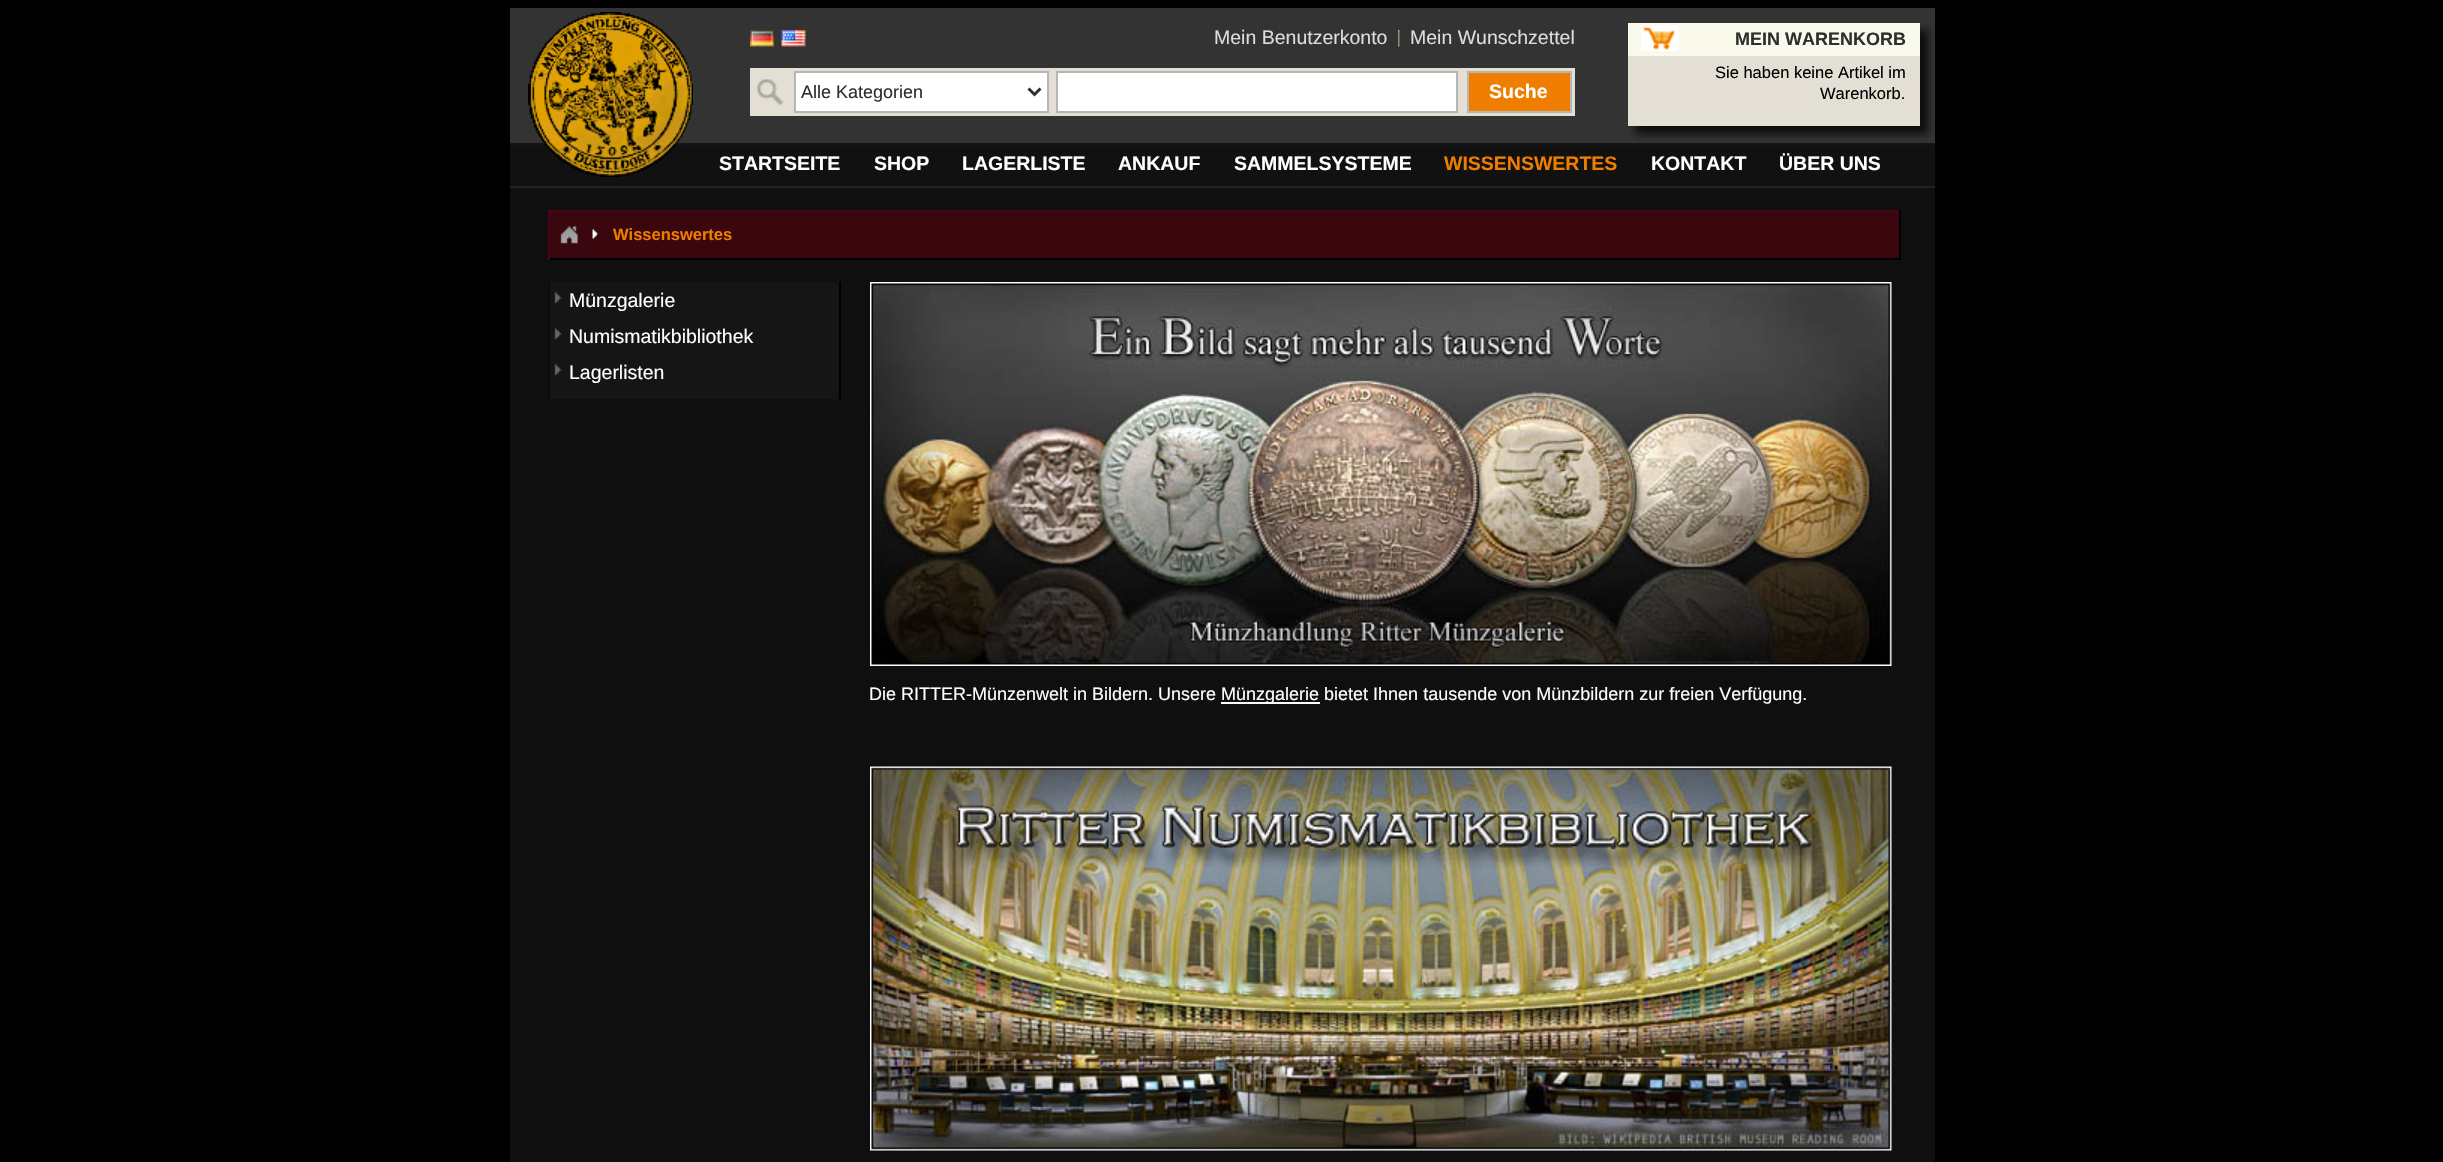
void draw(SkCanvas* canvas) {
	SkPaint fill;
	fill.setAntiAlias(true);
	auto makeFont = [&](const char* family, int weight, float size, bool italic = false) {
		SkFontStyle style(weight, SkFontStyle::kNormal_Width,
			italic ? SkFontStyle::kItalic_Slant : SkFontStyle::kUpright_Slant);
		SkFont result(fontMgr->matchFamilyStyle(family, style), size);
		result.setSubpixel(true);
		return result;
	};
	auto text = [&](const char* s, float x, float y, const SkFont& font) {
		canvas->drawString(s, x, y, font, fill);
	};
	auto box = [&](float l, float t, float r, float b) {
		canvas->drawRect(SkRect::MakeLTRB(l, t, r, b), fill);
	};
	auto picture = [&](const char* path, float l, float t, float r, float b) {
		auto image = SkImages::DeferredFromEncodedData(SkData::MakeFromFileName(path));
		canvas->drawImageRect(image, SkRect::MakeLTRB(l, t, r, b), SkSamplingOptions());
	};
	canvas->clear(0xFF000000);
	fill.setColor(0xFF333333);
	box(510, 8, 1935, 143);
	fill.setColor(0xFF151515);
	box(510, 143, 1935, 145);
	fill.setColor(0xFF111111);
	box(510, 145, 1935, 186);
	picture("image0.png", 528, 12, 693, 177);
	picture("image1.png", 750, 30, 774, 47);
	picture("image2.png", 781, 30, 806, 47);
	picture("image3.png", 1398, 30, 1400, 47);
	fill.setColor(0xFFE4DFD4);
	box(750, 68, 1575, 116);
	picture("image4.png", 757, 79, 784, 106);
	fill.setColor(0xFFFFFFFF);
	canvas->drawRect(SkRect::MakeLTRB(795, 72, 1048, 112), fill);
	fill.setStyle(SkPaint::kStroke_Style);
	fill.setStrokeWidth(2);
	fill.setColor(0xFFB6B6B6);
	canvas->drawRect(SkRect::MakeLTRB(795, 72, 1048, 112), fill);
	fill.setStrokeWidth(3);
	fill.setColor(0xFF2F2F2F);
	canvas->drawPath(SkPathBuilder().moveTo(1028.5f, 88.5f).lineTo(1034.5f, 94.5f).lineTo(1040.5f, 88.5f).detach(), fill);
	fill.setStyle(SkPaint::kFill_Style);
	fill.setColor(0xFFFFFFFF);
	canvas->drawRect(SkRect::MakeLTRB(1057, 72, 1457, 112), fill);
	fill.setStyle(SkPaint::kStroke_Style);
	fill.setStrokeWidth(2);
	fill.setColor(0xFFB6B6B6);
	canvas->drawRect(SkRect::MakeLTRB(1057, 72, 1457, 112), fill);
	fill.setStyle(SkPaint::kFill_Style);
	fill.setColor(0xFFEE7D00);
	canvas->drawRect(SkRect::MakeLTRB(1468, 72, 1571, 112), fill);
	fill.setStyle(SkPaint::kStroke_Style);
	fill.setColor(0xFFB6B6B6);
	canvas->drawRect(SkRect::MakeLTRB(1468, 72, 1571, 112), fill);
	fill.setStyle(SkPaint::kFill_Style);
	fill.setColor(0xFF0C0C0C);
	fill.setMaskFilter(SkMaskFilter::MakeBlur(kNormal_SkBlurStyle, 4));
	canvas->drawRect(SkRect::MakeLTRB(1635, 30, 1928, 134), fill);
	fill.setMaskFilter(nullptr);
	fill.setColor(0xFFFAFAEC);
	box(1628, 23, 1920, 56);
	picture("image5.png", 1641, 25, 1679, 51);
	fill.setColor(0xFFE4DFD4);
	box(1628, 56, 1920, 126);
	fill.setColor(0xFF232323);
	box(510, 186, 1935, 188);
	fill.setColor(0xFF0F0F0F);
	box(510, 188, 1935, 1162);
	fill.setColor(0xFF3B070F);
	box(550, 212, 1899, 258);
	fill.setColor(0xFF470615);
	box(548, 210, 1901, 212);
	fill.setColor(0xFF000000);
	box(1899, 210, 1901, 260);
	box(548, 258, 1901, 260);
	fill.setColor(0xFF470615);
	box(548, 210, 550, 260);
	picture("image6.png", 560, 226, 578, 244);
	picture("image7.png", 592, 229, 598, 239);
	fill.setColor(0xFF151515);
	box(550, 282, 839, 399);
	fill.setColor(0xFF000000);
	box(839, 282, 841, 399);
	fill.setColor(0xFF0C0C0C);
	box(548, 282, 550, 399);
	picture("image8.png", 554, 292, 562, 303);
	picture("image8.png", 554, 328, 562, 339);
	picture("image8.png", 554, 364, 562, 375);
	picture("image9.png", 870, 282, 1892, 666);
	fill.setColor(0xFFFFFFFF);
	box(1221, 702, 1320, 704);
	picture("image10.png", 870, 766, 1892, 1151);
	auto font1 = makeFont("Liberation Sans", 400, 19.5f);
	fill.setColor(0xFFDDDDDD);
	text("Mein Benutzerkonto", 1214, 44, font1);
	text("Mein Wunschzettel", 1410, 44, font1);
	auto font2 = makeFont("Liberation Sans", 400, 18);
	fill.setColor(0xFF2F2F2F);
	text("Alle Kategorien", 801, 98, font2);
	auto font3 = makeFont("Liberation Sans", 700, 19.5f);
	fill.setColor(0xFFFFFFFF);
	text("Suche", 1489, 98, font3);
	auto font4 = makeFont("Liberation Sans", 700, 18);
	fill.setColor(0xFF2F2F2F);
	text("MEIN WARENKORB", 1735, 45, font4);
	auto font5 = makeFont("Liberation Sans", 400, 16.5f);
	fill.setColor(0xFF000000);
	text("Sie haben keine Artikel im", 1715, 78, font5);
	text("Warenkorb.", 1820, 99, font5);
	fill.setColor(0xFFFFFFFF);
	text("STARTSEITE", 719, 170, font3);
	text("SHOP", 874, 170, font3);
	text("LAGERLISTE", 962, 170, font3);
	text("ANKAUF", 1118, 170, font3);
	text("SAMMELSYSTEME", 1234, 170, font3);
	fill.setColor(0xFFEE7D00);
	text("WISSENSWERTES", 1444, 170, font3);
	fill.setColor(0xFFFFFFFF);
	text("KONTAKT", 1651, 170, font3);
	text("ÜBER UNS", 1779, 170, font3);
	auto font6 = makeFont("Liberation Sans", 700, 16.5f);
	fill.setColor(0xFFEE7D00);
	text("Wissenswertes", 613, 240, font6);
	fill.setColor(0xFFFFFFFF);
	text("Münzgalerie", 569, 307, font1);
	text("Numismatikbibliothek", 569, 343, font1);
	text("Lagerlisten", 569, 379, font1);
	text("Die RITTER-Münzenwelt in Bildern. Unsere", 869, 700, font2);
	text("Münzgalerie bietet Ihnen tausende von Münzbildern zur freien Verfügung.", 1221, 700, font2);
}
